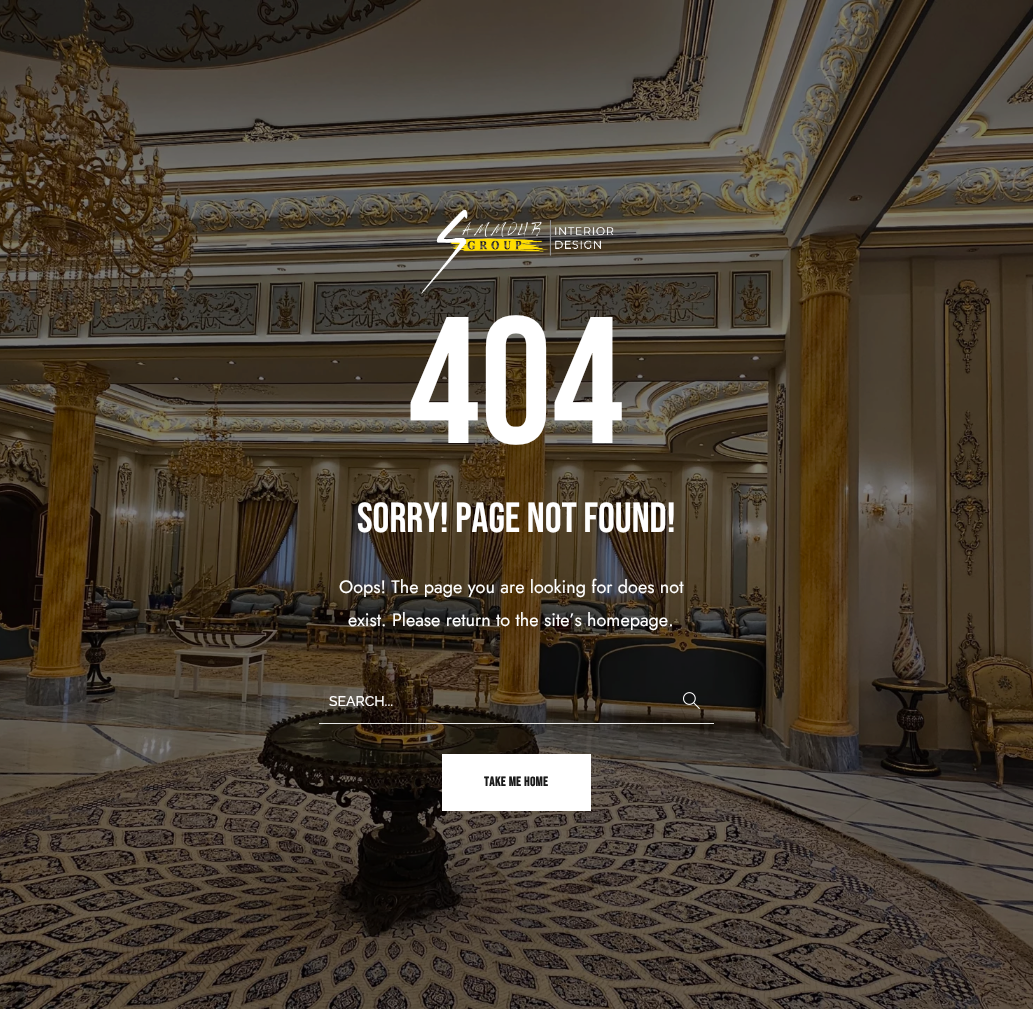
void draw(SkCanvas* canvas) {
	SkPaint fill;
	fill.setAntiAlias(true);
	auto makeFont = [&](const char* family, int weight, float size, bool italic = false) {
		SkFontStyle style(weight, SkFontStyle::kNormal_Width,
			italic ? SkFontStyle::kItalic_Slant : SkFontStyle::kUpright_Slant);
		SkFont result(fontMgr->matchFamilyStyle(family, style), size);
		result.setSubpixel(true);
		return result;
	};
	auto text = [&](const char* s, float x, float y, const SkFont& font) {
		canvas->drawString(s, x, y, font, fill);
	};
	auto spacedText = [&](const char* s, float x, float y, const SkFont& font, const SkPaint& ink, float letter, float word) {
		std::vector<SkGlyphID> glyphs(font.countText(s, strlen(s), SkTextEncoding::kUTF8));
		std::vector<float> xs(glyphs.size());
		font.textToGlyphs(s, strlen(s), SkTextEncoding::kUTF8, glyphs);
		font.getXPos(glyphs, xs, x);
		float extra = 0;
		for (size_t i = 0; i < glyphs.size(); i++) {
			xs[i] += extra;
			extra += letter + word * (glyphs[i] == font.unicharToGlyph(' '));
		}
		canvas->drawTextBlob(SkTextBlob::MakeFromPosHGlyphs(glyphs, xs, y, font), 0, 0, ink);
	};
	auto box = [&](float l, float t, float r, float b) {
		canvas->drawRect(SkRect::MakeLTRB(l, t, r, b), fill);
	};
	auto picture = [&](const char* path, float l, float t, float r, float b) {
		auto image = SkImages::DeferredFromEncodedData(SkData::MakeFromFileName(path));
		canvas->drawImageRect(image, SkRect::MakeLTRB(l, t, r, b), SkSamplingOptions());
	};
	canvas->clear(0xFFFFFFFF);
	picture("image0.png", 0, 0, 1033, 1009);
	picture("image1.png", 421, 209, 614, 294);
	fill.setColor(0xFFE6E6E6);
	box(319, 723, 714, 724);
	picture("image2.png", 683, 692, 700, 709);
	fill.setColor(0xFFFFFFFF);
	box(442, 754, 591, 811);
	auto font1 = makeFont("Bebas Neue", 400, 180);
	text("404", 408, 443, font1);
	auto font2 = makeFont("Bebas Neue", 400, 42);
	text("Sorry! Page Not Found!", 357, 532, font2);
	auto font3 = makeFont("Jost", 400, 18);
	text("Oops! The page you are looking for does not", 339, 593, font3);
	text("exist. Please return to the site’s homepage.", 348, 626, font3);
	auto font4 = makeFont("Raleway", 500, 14);
	text("SEARCH...", 329, 706, font4);
	auto font5 = makeFont("Bebas Neue", 700, 13);
	fill.setColor(0xFF1A1A1A);
	spacedText("TAKE ME HOME", 484, 786, font5, fill, 0.5f, 0);
}
